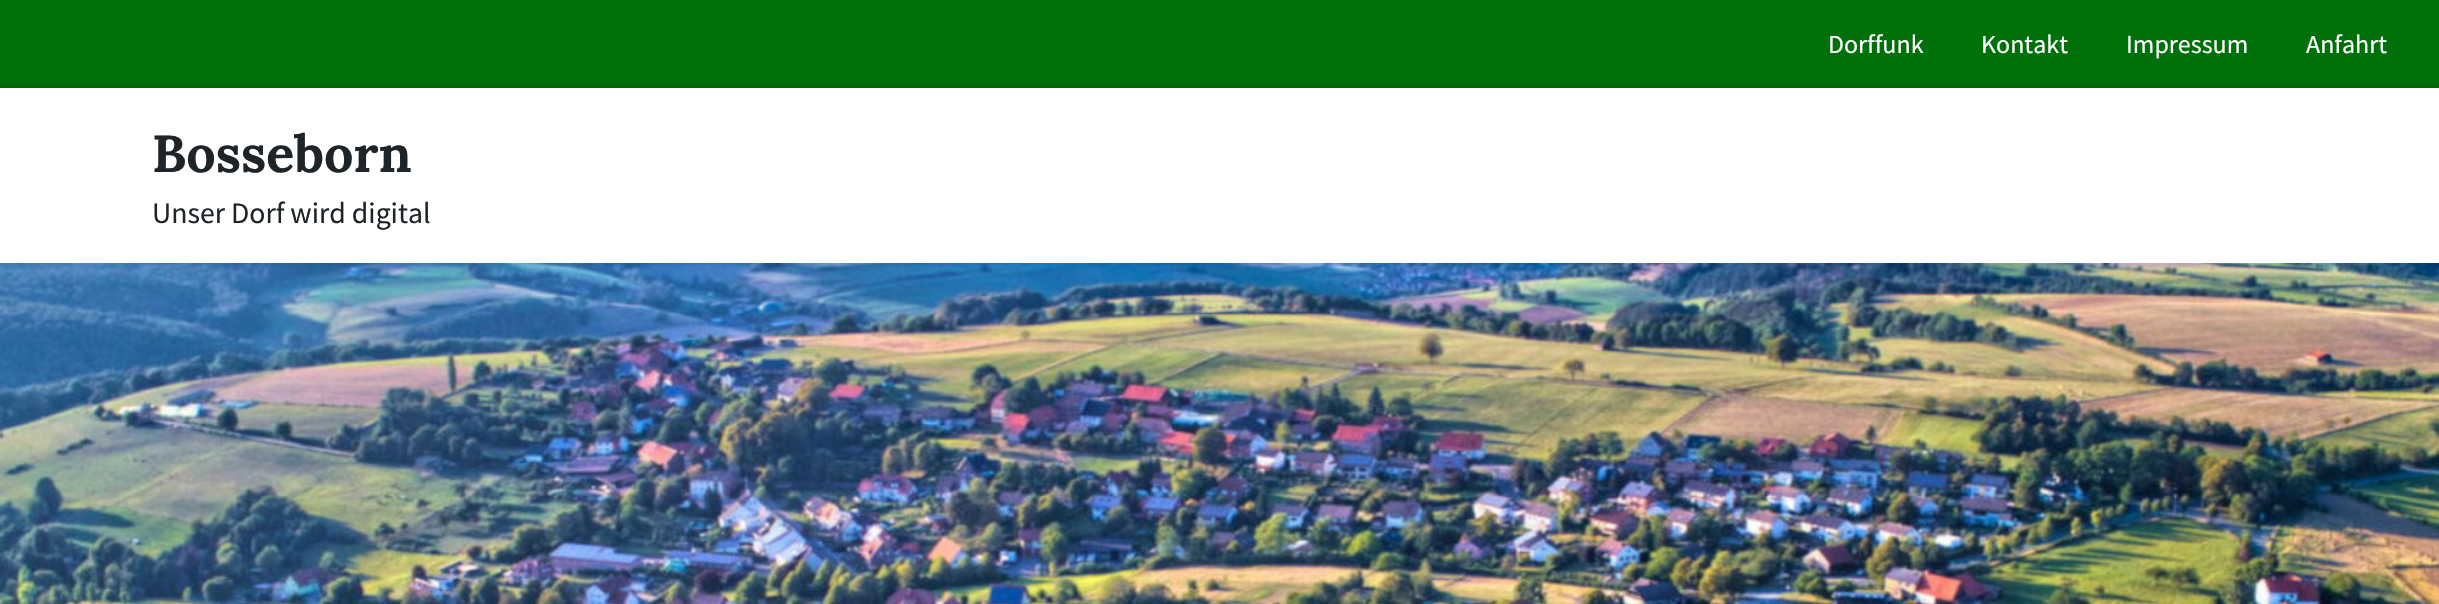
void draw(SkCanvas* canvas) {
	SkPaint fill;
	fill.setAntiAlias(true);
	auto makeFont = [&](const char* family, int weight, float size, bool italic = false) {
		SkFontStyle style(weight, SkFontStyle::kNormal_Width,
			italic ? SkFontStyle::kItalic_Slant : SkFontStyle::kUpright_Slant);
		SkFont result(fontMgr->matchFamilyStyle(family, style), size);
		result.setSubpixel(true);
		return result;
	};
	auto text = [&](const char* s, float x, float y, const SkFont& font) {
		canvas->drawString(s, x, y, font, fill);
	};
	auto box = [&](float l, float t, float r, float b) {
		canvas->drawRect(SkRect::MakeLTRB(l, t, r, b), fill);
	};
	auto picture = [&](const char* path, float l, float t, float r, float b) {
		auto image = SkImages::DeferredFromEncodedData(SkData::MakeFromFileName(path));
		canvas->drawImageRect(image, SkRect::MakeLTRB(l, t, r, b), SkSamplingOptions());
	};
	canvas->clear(0xFFFFFFFF);
	fill.setColor(0xFF00700B);
	box(0, 0, 2439, 88);
	picture("image0.png", 0, 263, 2439, 604);
	fill.setStyle(SkPaint::kStroke_Style);
	fill.setStrokeWidth(4);
	fill.setColor(0x0D000000);
	canvas->drawRect(SkRect::MakeLTRB(-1, 86, 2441, 264), fill);
	fill.setStyle(SkPaint::kFill_Style);
	fill.setColor(0xFFFFFFFF);
	box(0, 88, 2439, 263);
	auto font1 = makeFont("Source Sans Pro", 400, 26);
	text("Dorffunk", 1828, 53, font1);
	text("Kontakt", 1981, 53, font1);
	text("Impressum", 2126, 53, font1);
	text("Anfahrt", 2306, 53, font1);
	auto font2 = makeFont("Lora", 700, 52);
	fill.setColor(0xFF1E2427);
	text("Bosseborn", 152, 172, font2);
	auto font3 = makeFont("Source Sans Pro", 400, 29.75f);
	text("Unser Dorf wird digital", 152, 223, font3);
}
